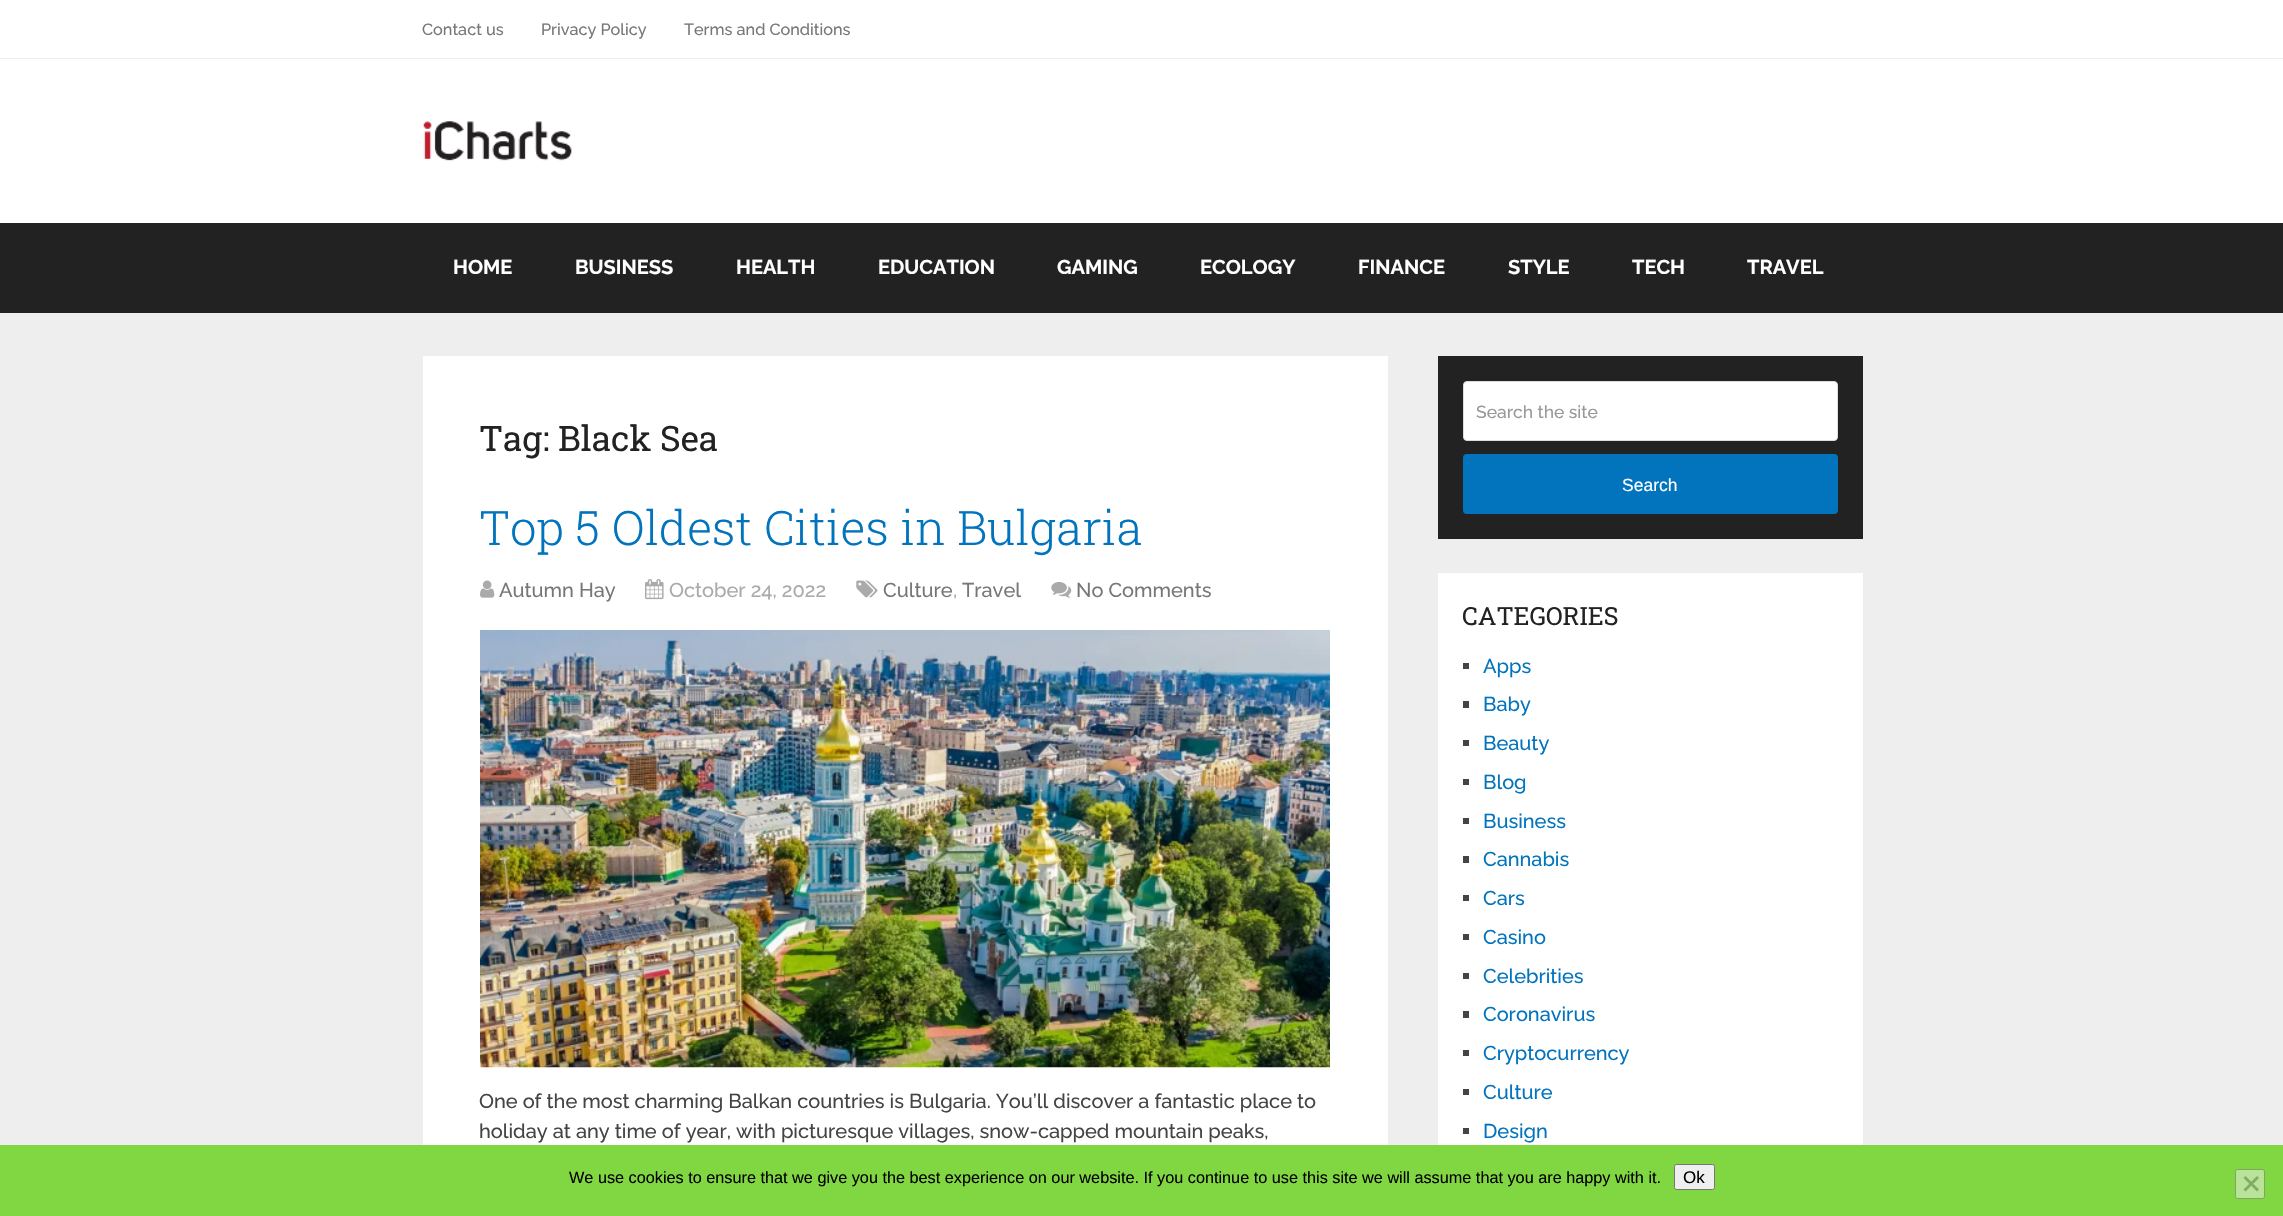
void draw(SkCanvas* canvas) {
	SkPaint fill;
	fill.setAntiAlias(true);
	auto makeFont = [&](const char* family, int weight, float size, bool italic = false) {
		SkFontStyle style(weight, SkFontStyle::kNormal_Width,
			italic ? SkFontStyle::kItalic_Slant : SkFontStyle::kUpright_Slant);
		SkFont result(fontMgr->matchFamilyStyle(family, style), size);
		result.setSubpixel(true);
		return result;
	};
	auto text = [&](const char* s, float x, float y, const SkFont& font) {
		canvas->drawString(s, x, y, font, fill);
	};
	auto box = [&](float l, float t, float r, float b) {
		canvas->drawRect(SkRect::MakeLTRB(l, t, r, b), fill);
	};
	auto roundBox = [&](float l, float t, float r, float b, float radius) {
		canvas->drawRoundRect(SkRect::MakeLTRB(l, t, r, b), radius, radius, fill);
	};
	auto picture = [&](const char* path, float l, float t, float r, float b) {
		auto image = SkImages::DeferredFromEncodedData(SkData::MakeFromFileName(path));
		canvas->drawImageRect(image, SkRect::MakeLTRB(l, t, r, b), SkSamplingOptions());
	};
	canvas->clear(0xFFEEEEEE);
	fill.setColor(0xFFFFFFFF);
	box(0, 0, 2283, 223);
	fill.setColor(0xFFEDEDED);
	box(0, 58, 2283, 59);
	picture("image0.png", 423, 121, 572, 161);
	fill.setColor(0xFF222222);
	box(0, 223, 2283, 313);
	fill.setColor(0xFFFFFFFF);
	box(423, 356, 1388, 1145);
	picture("image1.png", 480, 580, 495, 598);
	picture("image2.png", 645, 579, 664, 600);
	picture("image3.png", 856, 580, 878, 598);
	picture("image4.png", 1051, 582, 1072, 598);
	picture("image5.png", 480, 630, 1330, 1068);
	fill.setColor(0xFF222222);
	box(1438, 356, 1863, 539);
	fill.setColor(0xFFFFFFFF);
	canvas->drawRoundRect(SkRect::MakeLTRB(1463.5f, 381.5f, 1837.5f, 440.5f), 3.5f, 3.5f, fill);
	fill.setStyle(SkPaint::kStroke_Style);
	fill.setStrokeWidth(1);
	fill.setColor(0xFFDDDDDD);
	canvas->drawRoundRect(SkRect::MakeLTRB(1463.5f, 381.5f, 1837.5f, 440.5f), 3.5f, 3.5f, fill);
	fill.setStyle(SkPaint::kFill_Style);
	fill.setColor(0xFF0274BE);
	roundBox(1463, 454, 1838, 514, 4);
	fill.setColor(0xFFFFFFFF);
	box(1438, 573, 1863, 1145);
	fill.setColor(0xFF444444);
	box(1463, 663, 1469, 669);
	box(1463, 701, 1469, 708);
	box(1463, 740, 1469, 746);
	box(1463, 779, 1469, 785);
	box(1463, 818, 1469, 824);
	box(1463, 856, 1469, 863);
	box(1463, 895, 1469, 901);
	box(1463, 934, 1469, 940);
	box(1463, 973, 1469, 979);
	box(1463, 1011, 1469, 1018);
	box(1463, 1050, 1469, 1056);
	box(1463, 1089, 1469, 1095);
	box(1463, 1128, 1469, 1134);
	fill.setColor(0xFF81D742);
	box(0, 1145, 2283, 1216);
	fill.setColor(0xFFEFEFEF);
	canvas->drawRoundRect(SkRect::MakeLTRB(1674.5f, 1164.5f, 1714.5f, 1189.5f), 2, 2, fill);
	fill.setStyle(SkPaint::kStroke_Style);
	fill.setColor(0xFF767676);
	canvas->drawRoundRect(SkRect::MakeLTRB(1674.5f, 1164.5f, 1714.5f, 1189.5f), 2, 2, fill);
	fill.setStyle(SkPaint::kFill_Style);
	fill.setColor(0xFFB8E399);
	canvas->drawRoundRect(SkRect::MakeLTRB(2235.5f, 1169.5f, 2264.5f, 1198.5f), 2, 2, fill);
	fill.setStyle(SkPaint::kStroke_Style);
	fill.setColor(0xFF7CA75C);
	canvas->drawRoundRect(SkRect::MakeLTRB(2235.5f, 1169.5f, 2264.5f, 1198.5f), 2, 2, fill);
	fill.setStyle(SkPaint::kFill_Style);
	fill.setColor(0xFF81AC61);
	canvas->drawPath(SkPathBuilder().moveTo(2257, 1176).lineTo(2259, 1178).lineTo(2245.5f, 1191.5f).lineTo(2243.5f, 1189.5f).close().detach(), fill);
	canvas->drawPath(SkPathBuilder().moveTo(2243.5f, 1178).lineTo(2245.5f, 1176).lineTo(2259, 1189.5f).lineTo(2257, 1191.5f).close().detach(), fill);
	auto font1 = makeFont("Raleway", 500, 16.25f);
	fill.setColor(0xFF777777);
	text("Contact us", 422, 35, font1);
	text("Privacy Policy", 541, 35, font1);
	text("Terms and Conditions", 684, 35, font1);
	auto font2 = makeFont("Raleway", 700, 20);
	fill.setColor(0xFFFFFFFF);
	text("HOME", 453, 274, font2);
	text("BUSINESS", 575, 274, font2);
	text("HEALTH", 736, 274, font2);
	text("EDUCATION", 878, 274, font2);
	text("GAMING", 1057, 274, font2);
	text("ECOLOGY", 1200, 274, font2);
	text("FINANCE", 1358, 274, font2);
	text("STYLE", 1508, 274, font2);
	text("TECH", 1632, 274, font2);
	text("TRAVEL", 1747, 274, font2);
	auto font3 = makeFont("Roboto Slab", 400, 35);
	fill.setColor(0xFF222222);
	text("Tag: Black Sea", 479, 451, font3);
	auto font4 = makeFont("Roboto Slab", 300, 47.5f);
	fill.setColor(0xFF0274BE);
	text("Top 5 Oldest Cities in Bulgaria", 479, 545, font4);
	auto font5 = makeFont("Raleway", 500, 20);
	fill.setColor(0xFF777777);
	text("Autumn Hay", 499, 597, font5);
	fill.setColor(0xFFAAAAAA);
	text("October 24, 2022", 669, 597, font5);
	fill.setColor(0xFF777777);
	text("Culture", 883, 597, font5);
	fill.setColor(0xFFAAAAAA);
	text(",", 953, 597, font5);
	fill.setColor(0xFF777777);
	text("Travel", 962, 597, font5);
	text("No Comments", 1076, 597, font5);
	fill.setColor(0xFF444444);
	text("One of the most charming Balkan countries is Bulgaria. You’ll discover a fantastic place to", 479, 1108, font5);
	text("holiday at any time of year, with picturesque villages, snow-capped mountain peaks,", 479, 1138, font5);
	auto font6 = makeFont("Raleway", 500, 17.5f);
	fill.setColor(0xFF999999);
	text("Search the site", 1476, 418, font6);
	auto font7 = makeFont("Liberation Sans", 400, 17.5f);
	fill.setColor(0xFFFFFFFF);
	text("Search", 1622, 491, font7);
	auto font8 = makeFont("Roboto Slab", 400, 25);
	fill.setColor(0xFF222222);
	text("CATEGORIES", 1462, 625, font8);
	fill.setColor(0xFF0274BE);
	text("Apps", 1483, 673, font5);
	text("Baby", 1483, 711, font5);
	text("Beauty", 1483, 750, font5);
	text("Blog", 1483, 789, font5);
	text("Business", 1483, 828, font5);
	text("Cannabis", 1483, 866, font5);
	text("Cars", 1483, 905, font5);
	text("Casino", 1483, 944, font5);
	text("Celebrities", 1483, 983, font5);
	text("Coronavirus", 1483, 1021, font5);
	text("Cryptocurrency", 1483, 1060, font5);
	text("Culture", 1483, 1099, font5);
	text("Design", 1483, 1138, font5);
	auto font9 = makeFont("Liberation Sans", 400, 16.25f);
	fill.setColor(0xFF000000);
	text("We use cookies to ensure that we give you the best experience on our website. If you continue to use this site we will assume that you are happy with it.", 569, 1183, font9);
	auto font10 = makeFont("Liberation Sans", 400, 17);
	text("Ok", 1683, 1183, font10);
}
